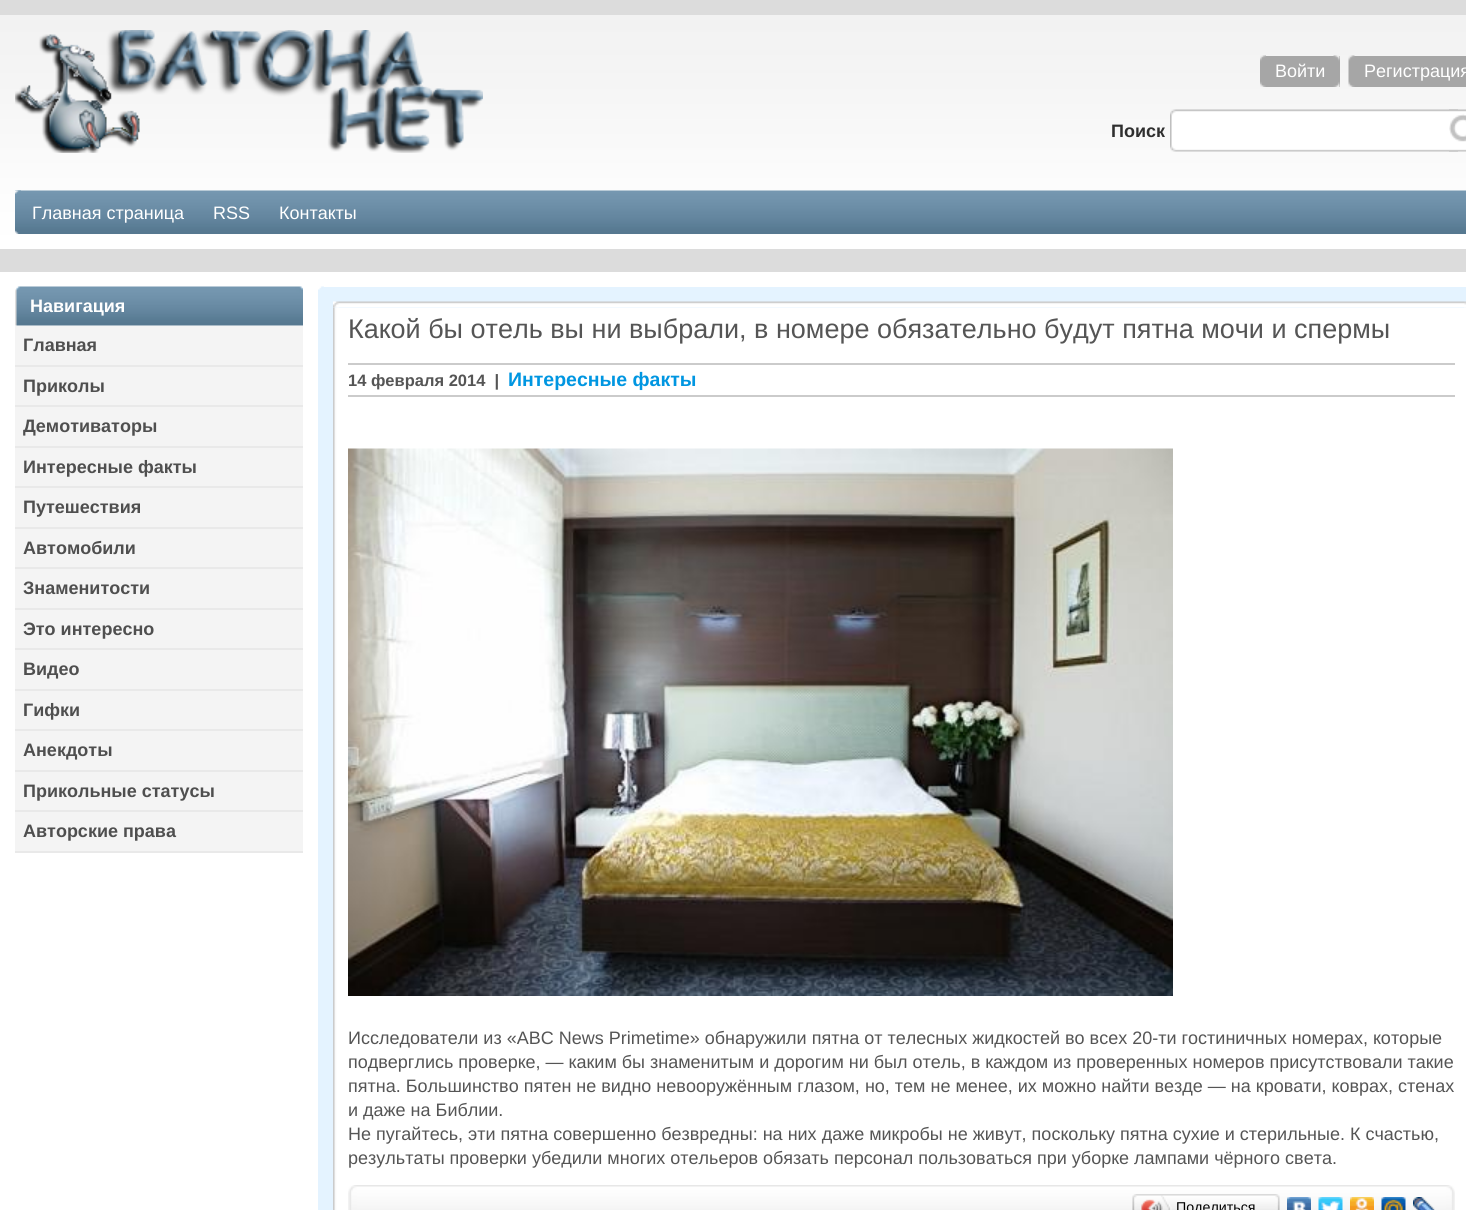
import math
import cairo

surface = cairo.ImageSurface(cairo.FORMAT_RGB24, 1466, 1210)
ctx = cairo.Context(surface)
options = cairo.FontOptions()
options.set_hint_metrics(cairo.HINT_METRICS_OFF)
options.set_hint_style(cairo.HINT_STYLE_NONE)
ctx.set_font_options(options)
ctx.set_miter_limit(4)


def picture(path, x, y, w, h):
    ctx.save()
    ctx.set_source_surface(cairo.ImageSurface.create_from_png(path), x, y)
    ctx.rectangle(x, y, w, h)
    ctx.fill()
    ctx.restore()


ctx.set_source_rgb(0.863, 0.863, 0.863)
ctx.paint()
picture("img1.png", 0, 15, 1466, 234)
picture("img2.png", 15, 30, 468, 123)
ctx.set_source_rgb(0.651, 0.651, 0.651)
ctx.rectangle(1266, 56, 74, 31)
ctx.fill()
picture("img3.png", 1260, 55, 6, 32)
picture("img4.png", 1333, 55, 7, 32)
ctx.select_font_face("Liberation Sans")
ctx.set_font_size(18)
ctx.set_source_rgb(1, 1, 1)
ctx.move_to(1275, 77)
ctx.show_text("Войти")
ctx.set_source_rgb(0.651, 0.651, 0.651)
ctx.rectangle(1354, 56, 112, 31)
ctx.fill()
picture("img5.png", 1348, 55, 7, 32)
ctx.set_source_rgb(1, 1, 1)
ctx.move_to(1364, 77)
ctx.show_text("Регистрация")
picture("img6.png", 1170, 109, 6, 43)
picture("img7.png", 1176, 109, 282, 43)
ctx.select_font_face("Liberation Sans", cairo.FONT_SLANT_NORMAL, cairo.FONT_WEIGHT_BOLD)
ctx.set_source_rgb(0.184, 0.184, 0.184)
ctx.move_to(1111, 137)
ctx.show_text("Поиск")
picture("img8.png", 1449, 109, 17, 43)
picture("img9.png", 15, 190, 1451, 44)
picture("img10.png", 15, 190, 6, 44)
ctx.select_font_face("Liberation Sans")
ctx.set_source_rgb(1, 1, 1)
ctx.move_to(32, 219)
ctx.show_text("Главная страница")
ctx.move_to(213, 219)
ctx.show_text("RSS")
ctx.move_to(279, 219)
ctx.show_text("Контакты")
ctx.rectangle(0, 272, 1466, 938)
ctx.fill()
picture("img11.png", 15, 286, 288, 40)
ctx.select_font_face("Liberation Sans", cairo.FONT_SLANT_NORMAL, cairo.FONT_WEIGHT_BOLD)
ctx.move_to(30, 312)
ctx.show_text("Навигация")
ctx.set_source_rgb(0.957, 0.957, 0.957)
ctx.rectangle(15, 326, 288, 525)
ctx.fill()
ctx.set_source_rgb(0.914, 0.914, 0.914)
ctx.rectangle(15, 365, 288, 2)
ctx.fill()
ctx.set_source_rgb(0.31, 0.31, 0.31)
ctx.move_to(23, 351)
ctx.show_text("Главная")
ctx.set_source_rgb(0.914, 0.914, 0.914)
ctx.rectangle(15, 405, 288, 2)
ctx.fill()
ctx.set_source_rgb(0.31, 0.31, 0.31)
ctx.move_to(23, 392)
ctx.show_text("Приколы")
ctx.set_source_rgb(0.914, 0.914, 0.914)
ctx.rectangle(15, 446, 288, 2)
ctx.fill()
ctx.set_source_rgb(0.31, 0.31, 0.31)
ctx.move_to(23, 432)
ctx.show_text("Демотиваторы")
ctx.set_source_rgb(0.914, 0.914, 0.914)
ctx.rectangle(15, 486, 288, 2)
ctx.fill()
ctx.set_source_rgb(0.31, 0.31, 0.31)
ctx.move_to(23, 473)
ctx.show_text("Интересные факты")
ctx.set_source_rgb(0.914, 0.914, 0.914)
ctx.rectangle(15, 527, 288, 2)
ctx.fill()
ctx.set_source_rgb(0.31, 0.31, 0.31)
ctx.move_to(23, 513)
ctx.show_text("Путешествия")
ctx.set_source_rgb(0.914, 0.914, 0.914)
ctx.rectangle(15, 567, 288, 2)
ctx.fill()
ctx.set_source_rgb(0.31, 0.31, 0.31)
ctx.move_to(23, 554)
ctx.show_text("Автомобили")
ctx.set_source_rgb(0.914, 0.914, 0.914)
ctx.rectangle(15, 608, 288, 2)
ctx.fill()
ctx.set_source_rgb(0.31, 0.31, 0.31)
ctx.move_to(23, 594)
ctx.show_text("Знаменитости")
ctx.set_source_rgb(0.914, 0.914, 0.914)
ctx.rectangle(15, 648, 288, 2)
ctx.fill()
ctx.set_source_rgb(0.31, 0.31, 0.31)
ctx.move_to(23, 635)
ctx.show_text("Это интересно")
ctx.set_source_rgb(0.914, 0.914, 0.914)
ctx.rectangle(15, 689, 288, 2)
ctx.fill()
ctx.set_source_rgb(0.31, 0.31, 0.31)
ctx.move_to(23, 675)
ctx.show_text("Видео")
ctx.set_source_rgb(0.914, 0.914, 0.914)
ctx.rectangle(15, 729, 288, 2)
ctx.fill()
ctx.set_source_rgb(0.31, 0.31, 0.31)
ctx.move_to(23, 716)
ctx.show_text("Гифки")
ctx.set_source_rgb(0.914, 0.914, 0.914)
ctx.rectangle(15, 770, 288, 2)
ctx.fill()
ctx.set_source_rgb(0.31, 0.31, 0.31)
ctx.move_to(23, 756)
ctx.show_text("Анекдоты")
ctx.set_source_rgb(0.914, 0.914, 0.914)
ctx.rectangle(15, 810, 288, 2)
ctx.fill()
ctx.set_source_rgb(0.31, 0.31, 0.31)
ctx.move_to(23, 797)
ctx.show_text("Прикольные статусы")
ctx.set_source_rgb(0.914, 0.914, 0.914)
ctx.rectangle(15, 851, 288, 2)
ctx.fill()
ctx.set_source_rgb(0.31, 0.31, 0.31)
ctx.move_to(23, 837)
ctx.show_text("Авторские права")
ctx.set_source_rgb(0.894, 0.953, 1)
ctx.rectangle(318, 287, 1148, 923)
ctx.fill()
picture("img12.png", 318, 286, 6, 4)
picture("img16.png", 333, 307, 6, 903)
picture("img13.png", 333, 301, 6, 7)
picture("img14.png", 339, 301, 1125, 7)
picture("img31.png", 1464, 307, 2, 903)
picture("img15.png", 1464, 301, 2, 7)
ctx.set_source_rgb(1, 1, 1)
ctx.rectangle(339, 308, 1125, 902)
ctx.fill()
ctx.set_source_rgb(0.796, 0.796, 0.796)
ctx.rectangle(348, 363, 1107, 2)
ctx.fill()
ctx.select_font_face("Liberation Sans")
ctx.set_font_size(27)
ctx.set_source_rgb(0.333, 0.333, 0.333)
ctx.move_to(348, 338)
ctx.show_text("Какой бы отель вы ни выбрали, в номере обязательно будут пятна мочи и спермы")
ctx.set_source_rgb(0.796, 0.796, 0.796)
ctx.rectangle(348, 395, 1107, 2)
ctx.fill()
ctx.select_font_face("Liberation Sans", cairo.FONT_SLANT_NORMAL, cairo.FONT_WEIGHT_BOLD)
ctx.set_font_size(16.5)
ctx.set_source_rgb(0.333, 0.333, 0.333)
ctx.move_to(348, 386)
ctx.show_text("14 февраля 2014  |")
ctx.set_font_size(19.5)
ctx.set_source_rgb(0, 0.588, 0.882)
ctx.move_to(508, 386)
ctx.show_text("Интересные факты")
picture("img17.png", 348, 448, 825, 548)
ctx.select_font_face("Liberation Sans")
ctx.set_font_size(18)
ctx.set_source_rgb(0.333, 0.333, 0.333)
ctx.move_to(348, 1044)
ctx.show_text("Исследователи из «ABC News Primetime» обнаружили пятна от телесных жидкостей во всех 20-ти гостиничных номерах, которые")
ctx.move_to(348, 1068)
ctx.show_text("подверглись проверке, — каким бы знаменитым и дорогим ни был отель, в каждом из проверенных номеров присутствовали такие")
ctx.move_to(348, 1092)
ctx.show_text("пятна. Большинство пятен не видно невооружённым глазом, но, тем не менее, их можно найти везде — на кровати, коврах, стенах")
ctx.move_to(348, 1116)
ctx.show_text("и даже на Библии.")
ctx.move_to(348, 1140)
ctx.show_text("Не пугайтесь, эти пятна совершенно безвредны: на них даже микробы не живут, поскольку пятна сухие и стерильные. К счастью,")
ctx.move_to(348, 1164)
ctx.show_text("результаты проверки убедили многих отельеров обязать персонал пользоваться при уборке лампами чёрного света.")
picture("img18.png", 348, 1185, 9, 25)
picture("img19.png", 357, 1185, 348, 25)
picture("img20.png", 705, 1185, 741, 25)
picture("img21.png", 1137, 1194, 138, 16)
picture("img22.png", 1132, 1194, 5, 16)
picture("img23.png", 1141, 1195, 31, 15)
ctx.set_font_size(14.25)
ctx.set_source_rgb(0, 0, 0)
ctx.move_to(1176, 1212)
ctx.show_text("Поделиться")
picture("img24.png", 1275, 1194, 5, 16)
picture("img25.png", 1287, 1197, 24, 13)
picture("img26.png", 1318, 1197, 25, 13)
picture("img27.png", 1350, 1197, 24, 13)
picture("img28.png", 1381, 1197, 25, 13)
picture("img29.png", 1413, 1197, 22, 13)
picture("img30.png", 1446, 1185, 9, 25)
surface.write_to_png("page.png")
